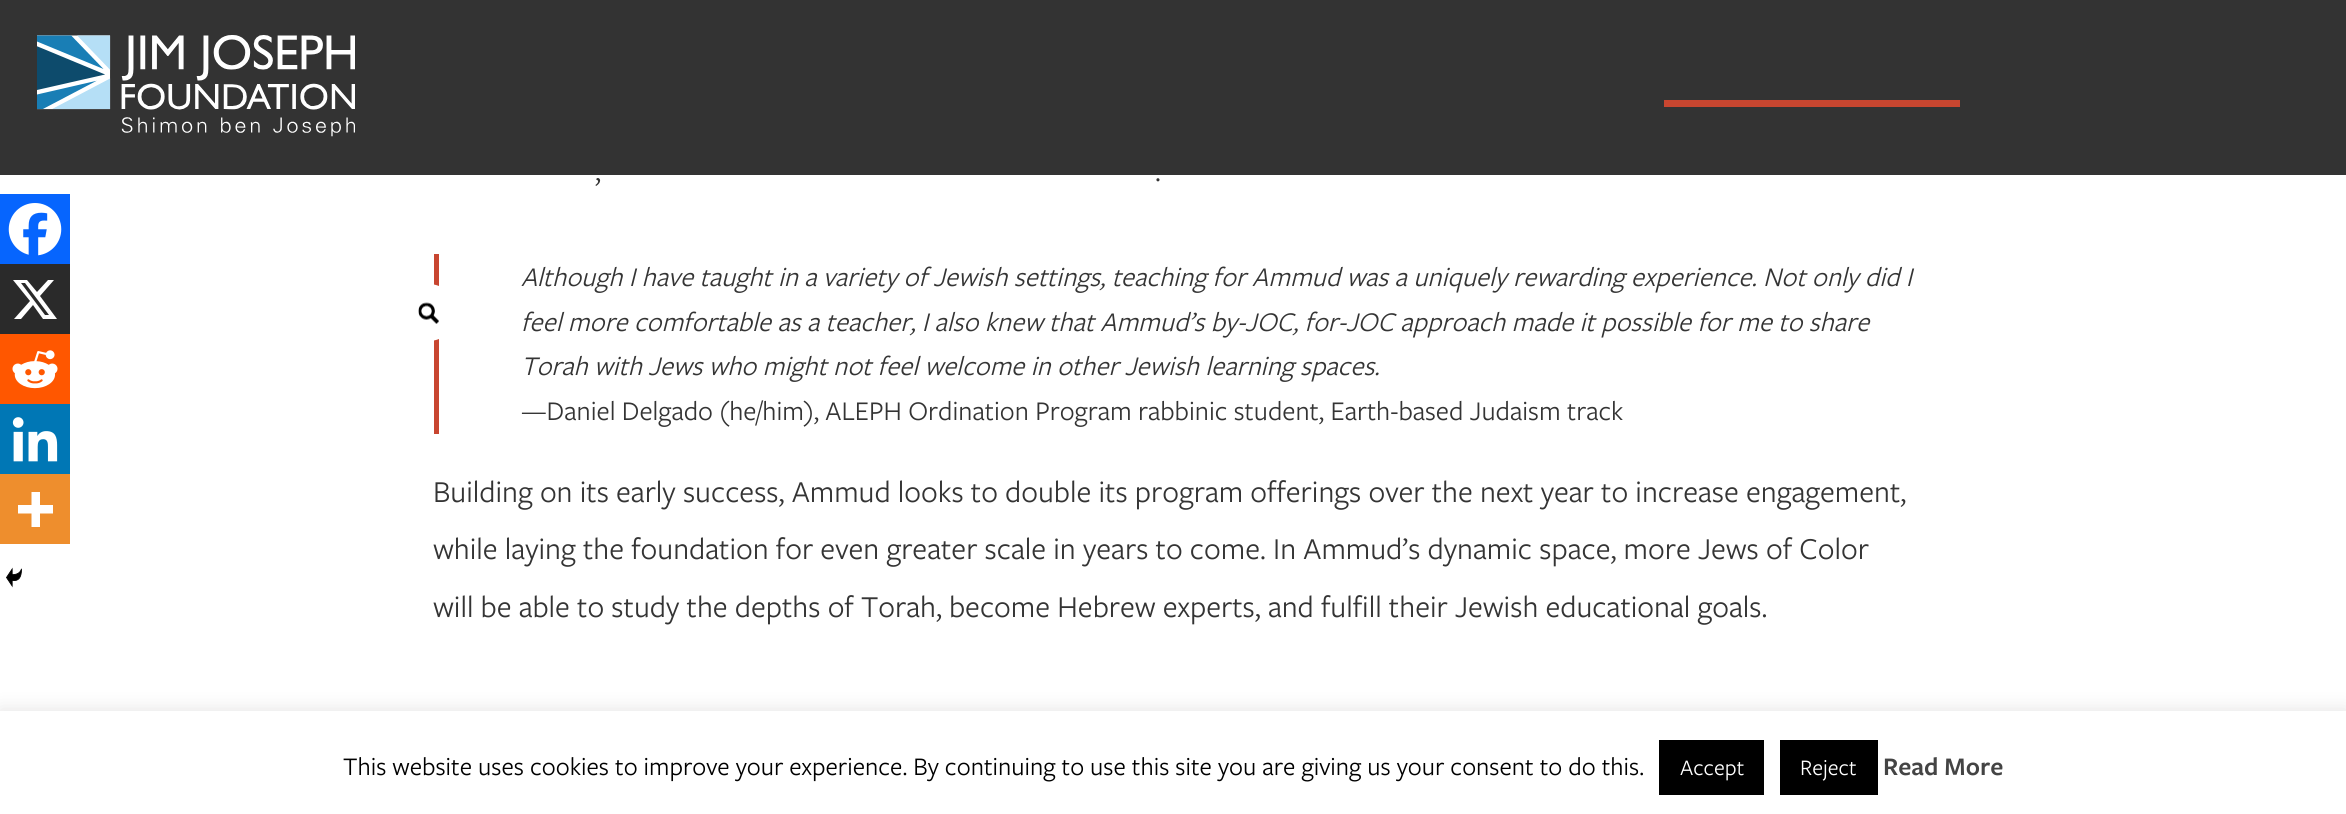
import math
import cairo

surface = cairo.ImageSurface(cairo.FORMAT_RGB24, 2346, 814)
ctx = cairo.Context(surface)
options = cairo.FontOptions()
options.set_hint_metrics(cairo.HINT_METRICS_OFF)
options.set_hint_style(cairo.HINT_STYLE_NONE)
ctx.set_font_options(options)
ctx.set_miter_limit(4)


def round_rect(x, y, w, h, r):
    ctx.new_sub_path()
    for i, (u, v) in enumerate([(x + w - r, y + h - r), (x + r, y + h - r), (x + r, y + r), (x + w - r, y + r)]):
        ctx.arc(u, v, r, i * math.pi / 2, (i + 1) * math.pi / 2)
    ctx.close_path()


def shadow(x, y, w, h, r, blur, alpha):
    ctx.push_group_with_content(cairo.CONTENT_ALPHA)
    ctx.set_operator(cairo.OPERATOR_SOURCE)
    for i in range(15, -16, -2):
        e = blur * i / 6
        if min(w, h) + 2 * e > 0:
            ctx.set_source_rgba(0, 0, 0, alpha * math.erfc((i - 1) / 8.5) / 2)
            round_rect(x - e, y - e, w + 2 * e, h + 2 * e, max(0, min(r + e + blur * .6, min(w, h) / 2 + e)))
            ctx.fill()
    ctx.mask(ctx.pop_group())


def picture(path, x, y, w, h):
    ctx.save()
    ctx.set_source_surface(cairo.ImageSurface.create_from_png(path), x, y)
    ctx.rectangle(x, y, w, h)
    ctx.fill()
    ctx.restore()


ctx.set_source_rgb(1, 1, 1)
ctx.paint()
ctx.set_source_rgb(0.2, 0.2, 0.2)
ctx.rectangle(0, 0, 2346, 175)
ctx.fill()
picture("img1.png", 37, 35, 318, 102)
ctx.set_source_rgb(0.784, 0.275, 0.188)
ctx.rectangle(1664, 100, 296, 7)
ctx.fill()
ctx.rectangle(434, 254, 5, 180)
ctx.fill()
ctx.set_source_rgb(1, 1, 1)
round_rect(399, 284, 58, 57, 28.5)
ctx.fill()
picture("img2.png", 418, 302, 21, 22)
ctx.select_font_face("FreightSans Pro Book")
ctx.set_font_size(31.5)
ctx.set_source_rgb(0.204, 0.204, 0.204)
ctx.move_to(595, 181)
ctx.show_text(",")
ctx.move_to(1155, 181)
ctx.show_text(".")
ctx.set_source_rgb(0.027, 0.396, 0.996)
ctx.rectangle(0, 194, 70, 70)
ctx.fill()
picture("img3.png", 8, 203, 54, 53)
ctx.set_source_rgb(0.165, 0.165, 0.165)
ctx.rectangle(0, 264, 70, 70)
ctx.fill()
ctx.set_source_rgb(1, 1, 1)
ctx.new_path()
ctx.move_to(48, 280)
ctx.line_to(54, 280)
ctx.line_to(40, 296)
ctx.line_to(57, 319)
ctx.line_to(43, 319)
ctx.line_to(33, 305)
ctx.line_to(21, 319)
ctx.line_to(14, 319)
ctx.line_to(30, 301)
ctx.line_to(13, 280)
ctx.line_to(27, 280)
ctx.line_to(37, 292)
ctx.close_path()
ctx.move_to(45, 315)
ctx.line_to(49, 315)
ctx.line_to(25, 283)
ctx.line_to(21, 283)
ctx.close_path()
ctx.fill()
ctx.set_source_rgb(1, 0.341, 0)
ctx.rectangle(0, 334, 70, 70)
ctx.fill()
picture("img4.png", 12, 350, 46, 39)
ctx.set_source_rgb(0, 0.467, 0.71)
ctx.rectangle(0, 404, 70, 70)
ctx.fill()
picture("img5.png", 12, 417, 46, 45)
ctx.set_source_rgb(0.933, 0.557, 0.176)
ctx.rectangle(0, 474, 70, 70)
ctx.fill()
ctx.set_source_rgb(1, 1, 1)
ctx.set_fill_rule(cairo.FILL_RULE_EVEN_ODD)
ctx.new_path()
ctx.move_to(40, 505)
ctx.line_to(40, 492)
ctx.line_to(31.5, 492)
ctx.line_to(31.5, 505)
ctx.line_to(18, 505)
ctx.line_to(18, 513.5)
ctx.line_to(31.5, 513.5)
ctx.line_to(31.5, 527)
ctx.line_to(40, 527)
ctx.line_to(40, 513.5)
ctx.line_to(53, 513.5)
ctx.line_to(53, 505)
ctx.close_path()
ctx.fill()
picture("img6.png", 6, 567, 16, 21)
ctx.select_font_face("FreightSans Pro Book", cairo.FONT_SLANT_ITALIC)
ctx.set_font_size(28)
ctx.set_source_rgb(0.204, 0.204, 0.204)
ctx.move_to(521, 286)
ctx.show_text("Although I have taught in a variety of Jewish settings, teaching for Ammud was a uniquely rewarding experience. Not only did I")
ctx.move_to(521, 331)
ctx.show_text("feel more comfortable as a teacher, I also knew that Ammud’s by-JOC, for-JOC approach made it possible for me to share")
ctx.move_to(521, 375)
ctx.show_text("Torah with Jews who might not feel welcome in other Jewish learning spaces.")
ctx.select_font_face("FreightSans Pro Book")
ctx.move_to(521, 420)
ctx.show_text("—Daniel Delgado (he/him), ALEPH Ordination Program rabbinic student, Earth-based Judaism track")
ctx.set_font_size(31.5)
ctx.move_to(433, 502)
ctx.show_text("Building on its early success, Ammud looks to double its program offerings over the next year to increase engagement,")
ctx.move_to(433, 559)
ctx.show_text("while laying the foundation for even greater scale in years to come. In Ammud’s dynamic space, more Jews of Color")
ctx.move_to(433, 617)
ctx.show_text("will be able to study the depths of Torah, become Hebrew experts, and fulfill their Jewish educational goals.")
ctx.set_source_rgb(0.675, 0.671, 0.671)
shadow(0, 709, 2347, 105, 0, 9, 0.3)
ctx.set_source_rgb(1, 1, 1)
ctx.rectangle(0, 711, 2346, 103)
ctx.fill()
ctx.set_font_size(26.25)
ctx.set_source_rgb(0, 0, 0)
ctx.move_to(343, 775)
ctx.show_text("This website uses cookies to improve your experience. By continuing to use this site you are giving us your consent to do this.")
ctx.rectangle(1659, 740, 105, 55)
ctx.fill()
ctx.set_font_size(23)
ctx.set_source_rgb(1, 1, 1)
ctx.move_to(1680, 775)
ctx.show_text("Accept")
ctx.set_source_rgb(0, 0, 0)
ctx.rectangle(1780, 740, 98, 55)
ctx.fill()
ctx.set_source_rgb(1, 1, 1)
ctx.move_to(1800, 775)
ctx.show_text("Reject")
ctx.select_font_face("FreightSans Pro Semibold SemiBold")
ctx.set_font_size(26.25)
ctx.set_source_rgb(0.267, 0.267, 0.267)
ctx.move_to(1883, 775)
ctx.show_text("Read More")
surface.write_to_png("page.png")
